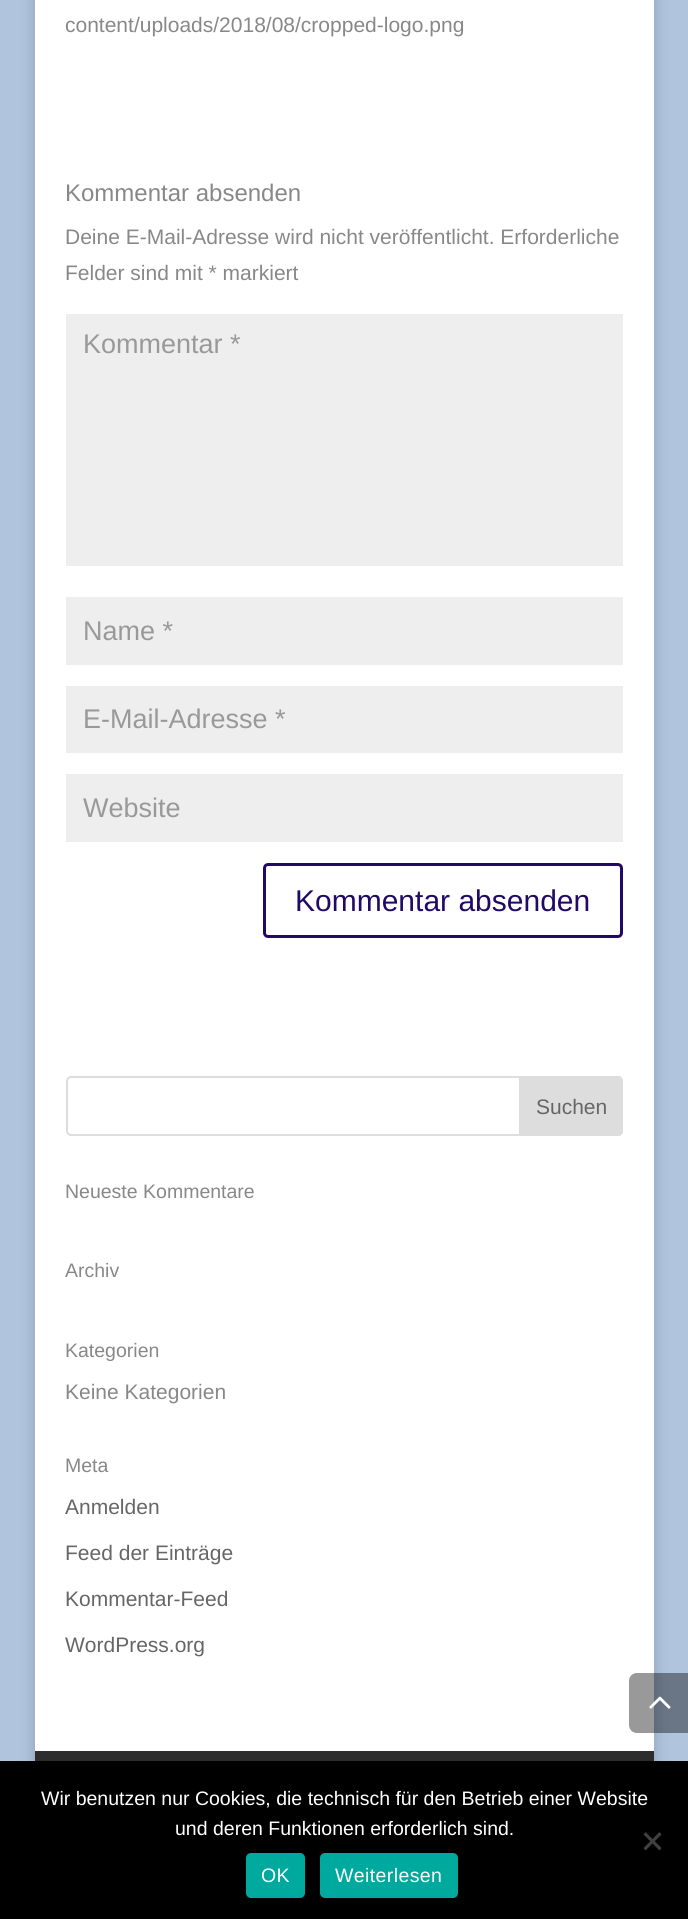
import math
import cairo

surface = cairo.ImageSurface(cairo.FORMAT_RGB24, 688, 1919)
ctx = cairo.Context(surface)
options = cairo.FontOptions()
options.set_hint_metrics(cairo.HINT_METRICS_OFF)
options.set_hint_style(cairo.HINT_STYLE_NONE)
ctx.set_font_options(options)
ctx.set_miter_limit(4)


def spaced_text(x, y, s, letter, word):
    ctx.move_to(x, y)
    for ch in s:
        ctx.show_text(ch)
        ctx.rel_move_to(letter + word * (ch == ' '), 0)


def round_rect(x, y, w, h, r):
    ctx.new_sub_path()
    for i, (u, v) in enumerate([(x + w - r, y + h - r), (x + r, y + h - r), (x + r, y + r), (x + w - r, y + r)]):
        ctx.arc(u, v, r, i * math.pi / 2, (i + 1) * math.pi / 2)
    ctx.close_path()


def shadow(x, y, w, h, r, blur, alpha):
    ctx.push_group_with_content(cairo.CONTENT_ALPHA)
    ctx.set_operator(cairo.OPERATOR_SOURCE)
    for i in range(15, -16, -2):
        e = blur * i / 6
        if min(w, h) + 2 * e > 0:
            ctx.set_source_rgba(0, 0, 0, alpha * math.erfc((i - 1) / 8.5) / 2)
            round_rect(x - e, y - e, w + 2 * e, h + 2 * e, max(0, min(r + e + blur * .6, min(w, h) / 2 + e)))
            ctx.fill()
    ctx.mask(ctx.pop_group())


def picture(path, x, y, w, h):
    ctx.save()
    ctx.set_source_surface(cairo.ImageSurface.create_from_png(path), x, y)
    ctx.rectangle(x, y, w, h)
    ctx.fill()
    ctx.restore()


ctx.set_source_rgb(0.69, 0.769, 0.871)
ctx.paint()
ctx.set_source_rgb(0, 0, 0)
shadow(35, -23, 619, 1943, 0, 7.5, 0.2)
ctx.set_source_rgb(1, 1, 1)
ctx.rectangle(35, 0, 619, 1751)
ctx.fill()
ctx.select_font_face("Liberation Sans")
ctx.set_font_size(21)
ctx.set_source_rgb(0.533, 0.533, 0.533)
ctx.move_to(65, 32)
ctx.show_text("content/uploads/2018/08/cropped-logo.png")
ctx.set_font_size(24)
ctx.move_to(65, 201)
ctx.show_text("Kommentar absenden")
ctx.set_font_size(21)
ctx.move_to(65, 244)
ctx.show_text("Deine E-Mail-Adresse wird nicht veröffentlicht. Erforderliche")
ctx.move_to(65, 280)
ctx.show_text("Felder sind mit * markiert")
ctx.set_source_rgb(0.933, 0.933, 0.933)
ctx.rectangle(66, 314, 557, 252)
ctx.fill()
ctx.set_font_size(27)
ctx.set_source_rgb(0.6, 0.6, 0.6)
ctx.move_to(83, 353)
ctx.show_text("Kommentar *")
ctx.set_source_rgb(0.933, 0.933, 0.933)
ctx.rectangle(66, 597, 557, 68)
ctx.fill()
ctx.set_source_rgb(0.6, 0.6, 0.6)
ctx.move_to(83, 640)
ctx.show_text("Name *")
ctx.set_source_rgb(0.933, 0.933, 0.933)
ctx.rectangle(66, 686, 557, 67)
ctx.fill()
ctx.set_source_rgb(0.6, 0.6, 0.6)
ctx.move_to(83, 728)
ctx.show_text("E-Mail-Adresse *")
ctx.set_source_rgb(0.933, 0.933, 0.933)
ctx.rectangle(66, 774, 557, 68)
ctx.fill()
ctx.set_source_rgb(0.6, 0.6, 0.6)
ctx.move_to(83, 817)
ctx.show_text("Website")
round_rect(264.5, 864.5, 357, 72, 3.5)
ctx.set_source_rgb(0.129, 0.039, 0.4)
ctx.set_line_width(3)
ctx.stroke()
ctx.set_font_size(30)
ctx.move_to(295, 911)
ctx.show_text("Kommentar absenden")
round_rect(67, 1077, 555, 58, 4)
ctx.set_source_rgb(0.867, 0.867, 0.867)
ctx.set_line_width(2)
ctx.stroke()
ctx.new_path()
ctx.move_to(520, 1077)
ctx.line_to(618, 1077)
ctx.curve_to(620, 1077, 622, 1079, 622, 1081)
ctx.line_to(622, 1131)
ctx.curve_to(622, 1133, 620, 1135, 618, 1135)
ctx.line_to(520, 1135)
ctx.close_path()
ctx.fill_preserve()
ctx.stroke()
ctx.set_font_size(21)
ctx.set_source_rgb(0.4, 0.4, 0.4)
ctx.move_to(536, 1114)
ctx.show_text("Suchen")
ctx.set_font_size(19.5)
ctx.set_source_rgb(0.533, 0.533, 0.533)
ctx.move_to(65, 1198)
ctx.show_text("Neueste Kommentare")
ctx.move_to(65, 1277)
ctx.show_text("Archiv")
ctx.move_to(65, 1357)
ctx.show_text("Kategorien")
ctx.set_font_size(21)
ctx.move_to(65, 1399)
ctx.show_text("Keine Kategorien")
ctx.set_font_size(19.5)
ctx.move_to(65, 1472)
ctx.show_text("Meta")
ctx.set_font_size(21)
ctx.set_source_rgb(0.4, 0.4, 0.4)
ctx.move_to(65, 1514)
ctx.show_text("Anmelden")
ctx.move_to(65, 1560)
ctx.show_text("Feed der Einträge")
ctx.move_to(65, 1606)
ctx.show_text("Kommentar-Feed")
ctx.move_to(65, 1652)
ctx.show_text("WordPress.org")
ctx.set_source_rgba(0, 0, 0, 0.4)
ctx.new_path()
ctx.move_to(637, 1673)
ctx.line_to(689, 1673)
ctx.line_to(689, 1733)
ctx.line_to(637, 1733)
ctx.curve_to(632.5, 1733, 629, 1729.5, 629, 1725)
ctx.line_to(629, 1681)
ctx.curve_to(629, 1676.5, 632.5, 1673, 637, 1673)
ctx.close_path()
ctx.fill()
picture("img1.png", 649, 1696, 22, 13)
ctx.set_source_rgb(0.176, 0.176, 0.176)
ctx.rectangle(35, 1751, 619, 10)
ctx.fill()
ctx.set_source_rgb(0, 0, 0)
ctx.rectangle(0, 1761, 688, 158)
ctx.fill()
ctx.set_font_size(19.5)
ctx.set_source_rgb(1, 1, 1)
ctx.move_to(41, 1805)
ctx.show_text("Wir benutzen nur Cookies, die technisch für den Betrieb einer Website")
ctx.move_to(175, 1835)
ctx.show_text("und deren Funktionen erforderlich sind.")
ctx.set_source_rgb(0.251, 0.251, 0.251)
ctx.new_path()
ctx.move_to(659.5, 1832)
ctx.line_to(661.5, 1834.5)
ctx.line_to(645.5, 1850.5)
ctx.line_to(643.5, 1848)
ctx.close_path()
ctx.fill()
ctx.new_path()
ctx.move_to(643.5, 1834.5)
ctx.line_to(645.5, 1832)
ctx.line_to(661.5, 1848)
ctx.line_to(659.5, 1850.5)
ctx.close_path()
ctx.fill()
ctx.set_source_rgb(0, 0.663, 0.616)
round_rect(246, 1853, 59, 45, 5)
ctx.fill()
ctx.set_source_rgb(1, 1, 1)
spaced_text(261, 1882, "OK", 0.4, 0)
ctx.set_source_rgb(0, 0.663, 0.616)
round_rect(320, 1853, 138, 45, 5)
ctx.fill()
ctx.set_source_rgb(1, 1, 1)
spaced_text(335, 1882, "Weiterlesen", 0.4, 0)
surface.write_to_png("page.png")
